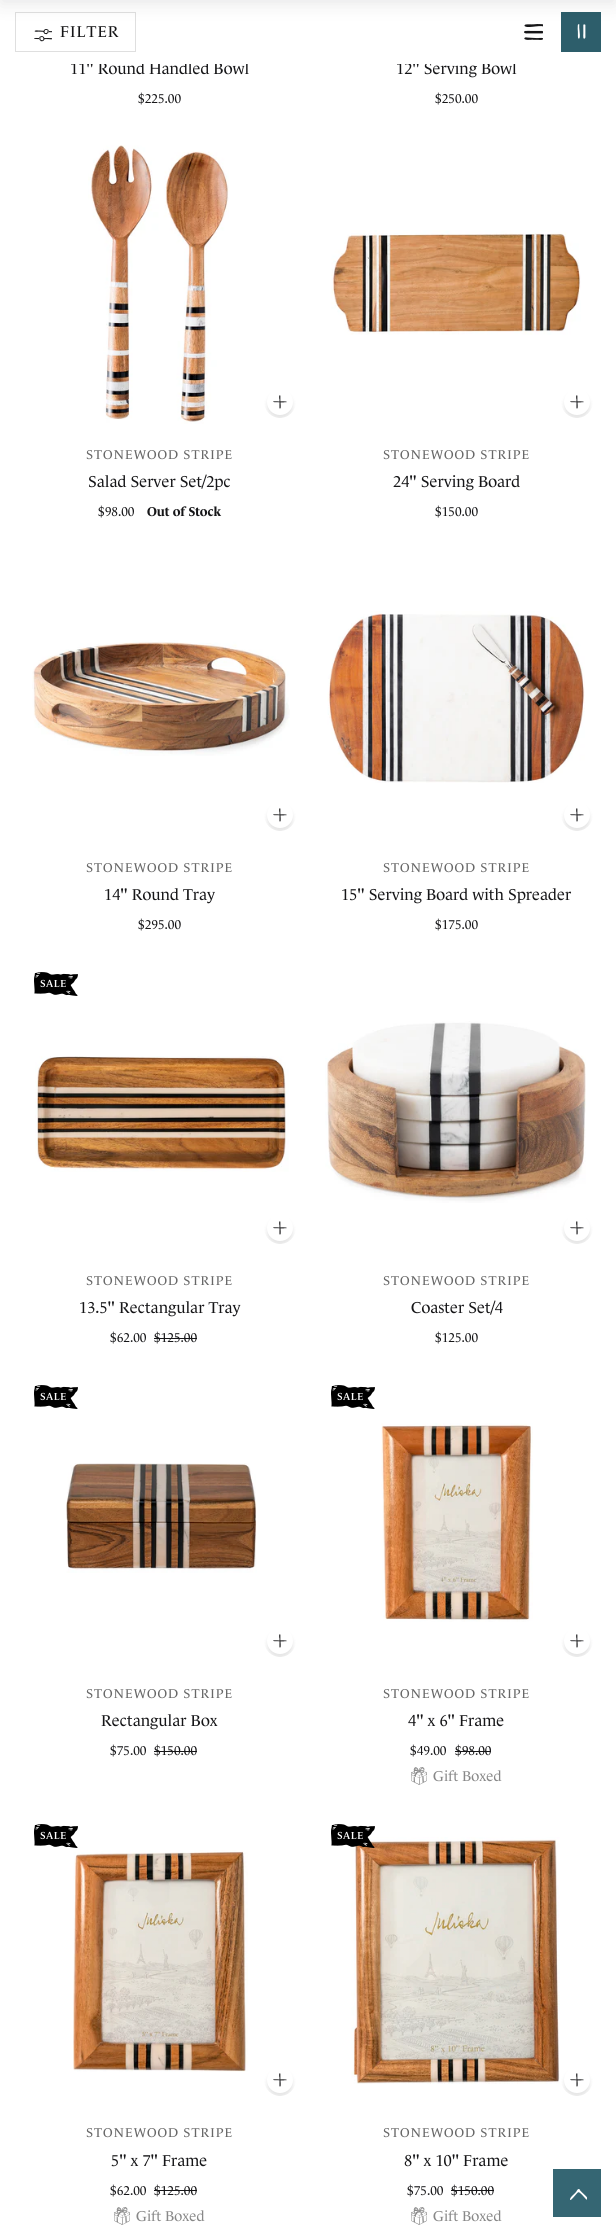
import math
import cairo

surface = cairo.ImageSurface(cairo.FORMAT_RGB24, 616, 2232)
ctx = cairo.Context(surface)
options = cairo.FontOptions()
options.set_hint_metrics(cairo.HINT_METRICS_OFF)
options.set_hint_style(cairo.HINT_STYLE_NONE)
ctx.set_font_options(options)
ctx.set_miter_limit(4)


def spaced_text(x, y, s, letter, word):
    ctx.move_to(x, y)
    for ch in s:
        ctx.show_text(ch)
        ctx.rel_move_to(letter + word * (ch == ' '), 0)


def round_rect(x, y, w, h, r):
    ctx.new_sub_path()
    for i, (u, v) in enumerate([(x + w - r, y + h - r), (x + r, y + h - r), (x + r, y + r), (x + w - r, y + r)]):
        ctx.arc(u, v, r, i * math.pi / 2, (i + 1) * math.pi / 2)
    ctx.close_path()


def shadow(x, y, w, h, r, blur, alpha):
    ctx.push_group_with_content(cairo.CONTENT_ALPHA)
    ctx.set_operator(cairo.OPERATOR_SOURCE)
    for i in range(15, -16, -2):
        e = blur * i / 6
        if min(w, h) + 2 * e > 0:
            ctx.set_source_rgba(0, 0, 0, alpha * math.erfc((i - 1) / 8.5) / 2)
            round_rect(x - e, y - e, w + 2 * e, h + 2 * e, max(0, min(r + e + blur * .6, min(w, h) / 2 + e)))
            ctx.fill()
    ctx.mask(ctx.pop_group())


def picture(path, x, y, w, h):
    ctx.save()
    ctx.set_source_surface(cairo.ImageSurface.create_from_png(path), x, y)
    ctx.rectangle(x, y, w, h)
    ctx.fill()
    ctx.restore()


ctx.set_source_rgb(1, 1, 1)
ctx.paint()
ctx.rectangle(15.5, 12.5, 120, 39)
ctx.set_source_rgb(0.875, 0.875, 0.875)
ctx.set_line_width(1)
ctx.stroke()
picture("img1.png", 34, 29, 18, 13)
picture("img2.png", 524, 24, 19, 16)
ctx.set_source_rgb(0.176, 0.369, 0.42)
ctx.rectangle(561, 12, 40, 40)
ctx.fill()
picture("img3.png", 577, 24, 9, 15)
ctx.set_source_rgb(0.086, 0.086, 0.094)
shadow(0, -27, 616, 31, 0, 9, 0.1)
ctx.select_font_face("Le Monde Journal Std")
ctx.set_font_size(16)
ctx.set_source_rgb(0.086, 0.086, 0.094)
ctx.move_to(70, 74)
ctx.show_text("11\" Round Handled Bowl")
ctx.move_to(396, 74)
ctx.show_text("12\" Serving Bowl")
ctx.set_source_rgb(1, 1, 1)
ctx.rectangle(72, 62, 444, 2)
ctx.fill()
ctx.set_source_rgb(0.086, 0.086, 0.094)
spaced_text(60, 37, "FILTER", 1, 0)
ctx.set_font_size(13)
ctx.move_to(138, 103)
ctx.show_text("$225.00")
ctx.move_to(435, 103)
ctx.show_text("$250.00")
picture("img4.png", 88, 145, 141, 279)
ctx.save()
round_rect(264, 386, 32, 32, 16)
ctx.clip()
ctx.set_source_rgb(0, 0, 0)
shadow(267, 393, 26, 26, 13, 2, 0.1)
ctx.restore()
ctx.set_source_rgb(1, 1, 1)
ctx.arc(280, 402, 13, 0, 2 * math.pi)
ctx.fill()
picture("img5.png", 273, 395, 14, 14)
ctx.set_source_rgb(0.404, 0.404, 0.404)
spaced_text(86, 459, "STONEWOOD STRIPE", 1, 0)
ctx.set_font_size(16)
ctx.set_source_rgb(0.086, 0.086, 0.094)
ctx.move_to(88, 487)
ctx.show_text("Salad Server Set/2pc")
ctx.set_font_size(13)
ctx.move_to(98, 516)
ctx.show_text("$98.00")
ctx.select_font_face("Le Monde Journal Std", cairo.FONT_SLANT_NORMAL, cairo.FONT_WEIGHT_BOLD)
ctx.move_to(147, 516)
ctx.show_text("Out of Stock")
picture("img6.png", 331, 230, 250, 105)
ctx.save()
round_rect(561, 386, 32, 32, 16)
ctx.clip()
ctx.set_source_rgb(0, 0, 0)
shadow(564, 393, 26, 26, 13, 2, 0.1)
ctx.restore()
ctx.set_source_rgb(1, 1, 1)
ctx.arc(577, 402, 13, 0, 2 * math.pi)
ctx.fill()
picture("img5.png", 570, 395, 14, 14)
ctx.select_font_face("Le Monde Journal Std")
ctx.set_source_rgb(0.404, 0.404, 0.404)
spaced_text(383, 459, "STONEWOOD STRIPE", 1, 0)
ctx.set_font_size(16)
ctx.set_source_rgb(0.086, 0.086, 0.094)
ctx.move_to(393, 487)
ctx.show_text("24\" Serving Board")
ctx.set_font_size(13)
ctx.move_to(435, 516)
ctx.show_text("$150.00")
picture("img7.png", 32, 640, 258, 116)
ctx.save()
round_rect(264, 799, 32, 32, 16)
ctx.clip()
ctx.set_source_rgb(0, 0, 0)
shadow(267, 806, 26, 26, 13, 2, 0.1)
ctx.restore()
ctx.set_source_rgb(1, 1, 1)
ctx.arc(280, 815, 13, 0, 2 * math.pi)
ctx.fill()
picture("img5.png", 273, 808, 14, 14)
ctx.set_source_rgb(0.404, 0.404, 0.404)
spaced_text(86, 872, "STONEWOOD STRIPE", 1, 0)
ctx.set_font_size(16)
ctx.set_source_rgb(0.086, 0.086, 0.094)
ctx.move_to(104, 900)
ctx.show_text("14\" Round Tray")
ctx.set_font_size(13)
ctx.move_to(138, 929)
ctx.show_text("$295.00")
picture("img8.png", 327, 611, 258, 172)
ctx.save()
round_rect(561, 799, 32, 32, 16)
ctx.clip()
ctx.set_source_rgb(0, 0, 0)
shadow(564, 806, 26, 26, 13, 2, 0.1)
ctx.restore()
ctx.set_source_rgb(1, 1, 1)
ctx.arc(577, 815, 13, 0, 2 * math.pi)
ctx.fill()
picture("img5.png", 570, 808, 14, 14)
ctx.set_source_rgb(0.404, 0.404, 0.404)
spaced_text(383, 872, "STONEWOOD STRIPE", 1, 0)
ctx.set_font_size(16)
ctx.set_source_rgb(0.086, 0.086, 0.094)
ctx.move_to(341, 900)
ctx.show_text("15\" Serving Board with Spreader")
ctx.set_font_size(13)
ctx.move_to(435, 929)
ctx.show_text("$175.00")
picture("img9.png", 34, 972, 44, 24)
picture("img10.png", 35, 1056, 254, 116)
ctx.save()
round_rect(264, 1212, 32, 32, 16)
ctx.clip()
ctx.set_source_rgb(0, 0, 0)
shadow(267, 1219, 26, 26, 13, 2, 0.1)
ctx.restore()
ctx.set_source_rgb(1, 1, 1)
ctx.arc(280, 1228, 13, 0, 2 * math.pi)
ctx.fill()
picture("img5.png", 273, 1221, 14, 14)
ctx.set_source_rgb(0.404, 0.404, 0.404)
spaced_text(86, 1285, "STONEWOOD STRIPE", 1, 0)
ctx.set_font_size(16)
ctx.set_source_rgb(0.086, 0.086, 0.094)
ctx.move_to(79, 1313)
ctx.show_text("13.5\" Rectangular Tray")
ctx.set_font_size(13)
ctx.move_to(110, 1342)
ctx.show_text("$62.00")
ctx.move_to(154, 1342)
ctx.show_text("$125.00")
ctx.rectangle(154, 1338, 43, 1)
ctx.fill()
picture("img11.png", 325, 1021, 261, 182)
ctx.save()
round_rect(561, 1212, 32, 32, 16)
ctx.clip()
ctx.set_source_rgb(0, 0, 0)
shadow(564, 1219, 26, 26, 13, 2, 0.1)
ctx.restore()
ctx.set_source_rgb(1, 1, 1)
ctx.arc(577, 1228, 13, 0, 2 * math.pi)
ctx.fill()
picture("img5.png", 570, 1221, 14, 14)
ctx.set_source_rgb(0.404, 0.404, 0.404)
spaced_text(383, 1285, "STONEWOOD STRIPE", 1, 0)
ctx.set_font_size(16)
ctx.set_source_rgb(0.086, 0.086, 0.094)
ctx.move_to(411, 1313)
ctx.show_text("Coaster Set/4")
ctx.set_font_size(13)
ctx.move_to(435, 1342)
ctx.show_text("$125.00")
picture("img9.png", 34, 1385, 44, 24)
picture("img12.png", 66, 1463, 191, 110)
ctx.save()
round_rect(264, 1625, 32, 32, 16)
ctx.clip()
ctx.set_source_rgb(0, 0, 0)
shadow(267, 1632, 26, 26, 13, 2, 0.1)
ctx.restore()
ctx.set_source_rgb(1, 1, 1)
ctx.arc(280, 1641, 13, 0, 2 * math.pi)
ctx.fill()
picture("img5.png", 273, 1634, 14, 14)
ctx.set_source_rgb(0.404, 0.404, 0.404)
spaced_text(86, 1698, "STONEWOOD STRIPE", 1, 0)
ctx.set_font_size(16)
ctx.set_source_rgb(0.086, 0.086, 0.094)
ctx.move_to(101, 1726)
ctx.show_text("Rectangular Box")
ctx.set_font_size(13)
ctx.move_to(110, 1755)
ctx.show_text("$75.00")
ctx.move_to(154, 1755)
ctx.show_text("$150.00")
ctx.rectangle(154, 1751, 43, 1)
ctx.fill()
picture("img9.png", 331, 1385, 44, 24)
picture("img13.png", 381, 1423, 152, 199)
ctx.save()
round_rect(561, 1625, 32, 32, 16)
ctx.clip()
ctx.set_source_rgb(0, 0, 0)
shadow(564, 1632, 26, 26, 13, 2, 0.1)
ctx.restore()
ctx.set_source_rgb(1, 1, 1)
ctx.arc(577, 1641, 13, 0, 2 * math.pi)
ctx.fill()
picture("img5.png", 570, 1634, 14, 14)
ctx.set_source_rgb(0.404, 0.404, 0.404)
spaced_text(383, 1698, "STONEWOOD STRIPE", 1, 0)
ctx.set_font_size(16)
ctx.set_source_rgb(0.086, 0.086, 0.094)
ctx.move_to(408, 1726)
ctx.show_text("4\" x 6\" Frame")
ctx.set_font_size(13)
ctx.move_to(410, 1755)
ctx.show_text("$49.00")
ctx.move_to(455, 1755)
ctx.show_text("$98.00")
ctx.rectangle(455, 1751, 36, 1)
ctx.fill()
picture("img14.png", 411, 1767, 16, 18)
ctx.set_font_size(14.5)
ctx.set_source_rgb(0.533, 0.533, 0.533)
ctx.move_to(433, 1781)
ctx.show_text("Gift Boxed")
picture("img9.png", 34, 1824, 44, 24)
picture("img15.png", 73, 1850, 175, 222)
ctx.save()
round_rect(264, 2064, 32, 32, 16)
ctx.clip()
ctx.set_source_rgb(0, 0, 0)
shadow(267, 2071, 26, 26, 13, 2, 0.1)
ctx.restore()
ctx.set_source_rgb(1, 1, 1)
ctx.arc(280, 2080, 13, 0, 2 * math.pi)
ctx.fill()
picture("img5.png", 273, 2073, 14, 14)
ctx.set_font_size(13)
ctx.set_source_rgb(0.404, 0.404, 0.404)
spaced_text(86, 2137, "STONEWOOD STRIPE", 1, 0)
ctx.set_font_size(16)
ctx.set_source_rgb(0.086, 0.086, 0.094)
ctx.move_to(111, 2166)
ctx.show_text("5\" x 7\" Frame")
ctx.set_font_size(13)
ctx.move_to(110, 2195)
ctx.show_text("$62.00")
ctx.move_to(154, 2195)
ctx.show_text("$125.00")
ctx.rectangle(154, 2190, 43, 1)
ctx.fill()
picture("img14.png", 114, 2207, 16, 18)
ctx.set_font_size(14.5)
ctx.set_source_rgb(0.533, 0.533, 0.533)
ctx.move_to(136, 2221)
ctx.show_text("Gift Boxed")
picture("img17.png", 351, 1837, 209, 247)
picture("img16.png", 331, 1824, 44, 24)
ctx.save()
round_rect(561, 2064, 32, 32, 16)
ctx.clip()
ctx.set_source_rgb(0, 0, 0)
shadow(564, 2071, 26, 26, 13, 2, 0.1)
ctx.restore()
ctx.set_source_rgb(1, 1, 1)
ctx.arc(577, 2080, 13, 0, 2 * math.pi)
ctx.fill()
picture("img5.png", 570, 2073, 14, 14)
ctx.set_font_size(13)
ctx.set_source_rgb(0.404, 0.404, 0.404)
spaced_text(383, 2137, "STONEWOOD STRIPE", 1, 0)
ctx.set_font_size(16)
ctx.set_source_rgb(0.086, 0.086, 0.094)
ctx.move_to(404, 2166)
ctx.show_text("8\" x 10\" Frame")
ctx.set_font_size(13)
ctx.move_to(407, 2195)
ctx.show_text("$75.00")
ctx.move_to(451, 2195)
ctx.show_text("$150.00")
ctx.rectangle(451, 2190, 43, 1)
ctx.fill()
picture("img14.png", 411, 2207, 16, 18)
ctx.set_font_size(14.5)
ctx.set_source_rgb(0.533, 0.533, 0.533)
ctx.move_to(433, 2221)
ctx.show_text("Gift Boxed")
ctx.set_source_rgb(0.208, 0.4, 0.451)
ctx.rectangle(553, 2169, 48, 48)
ctx.fill()
picture("img18.png", 570, 2189, 17, 11)
surface.write_to_png("page.png")
